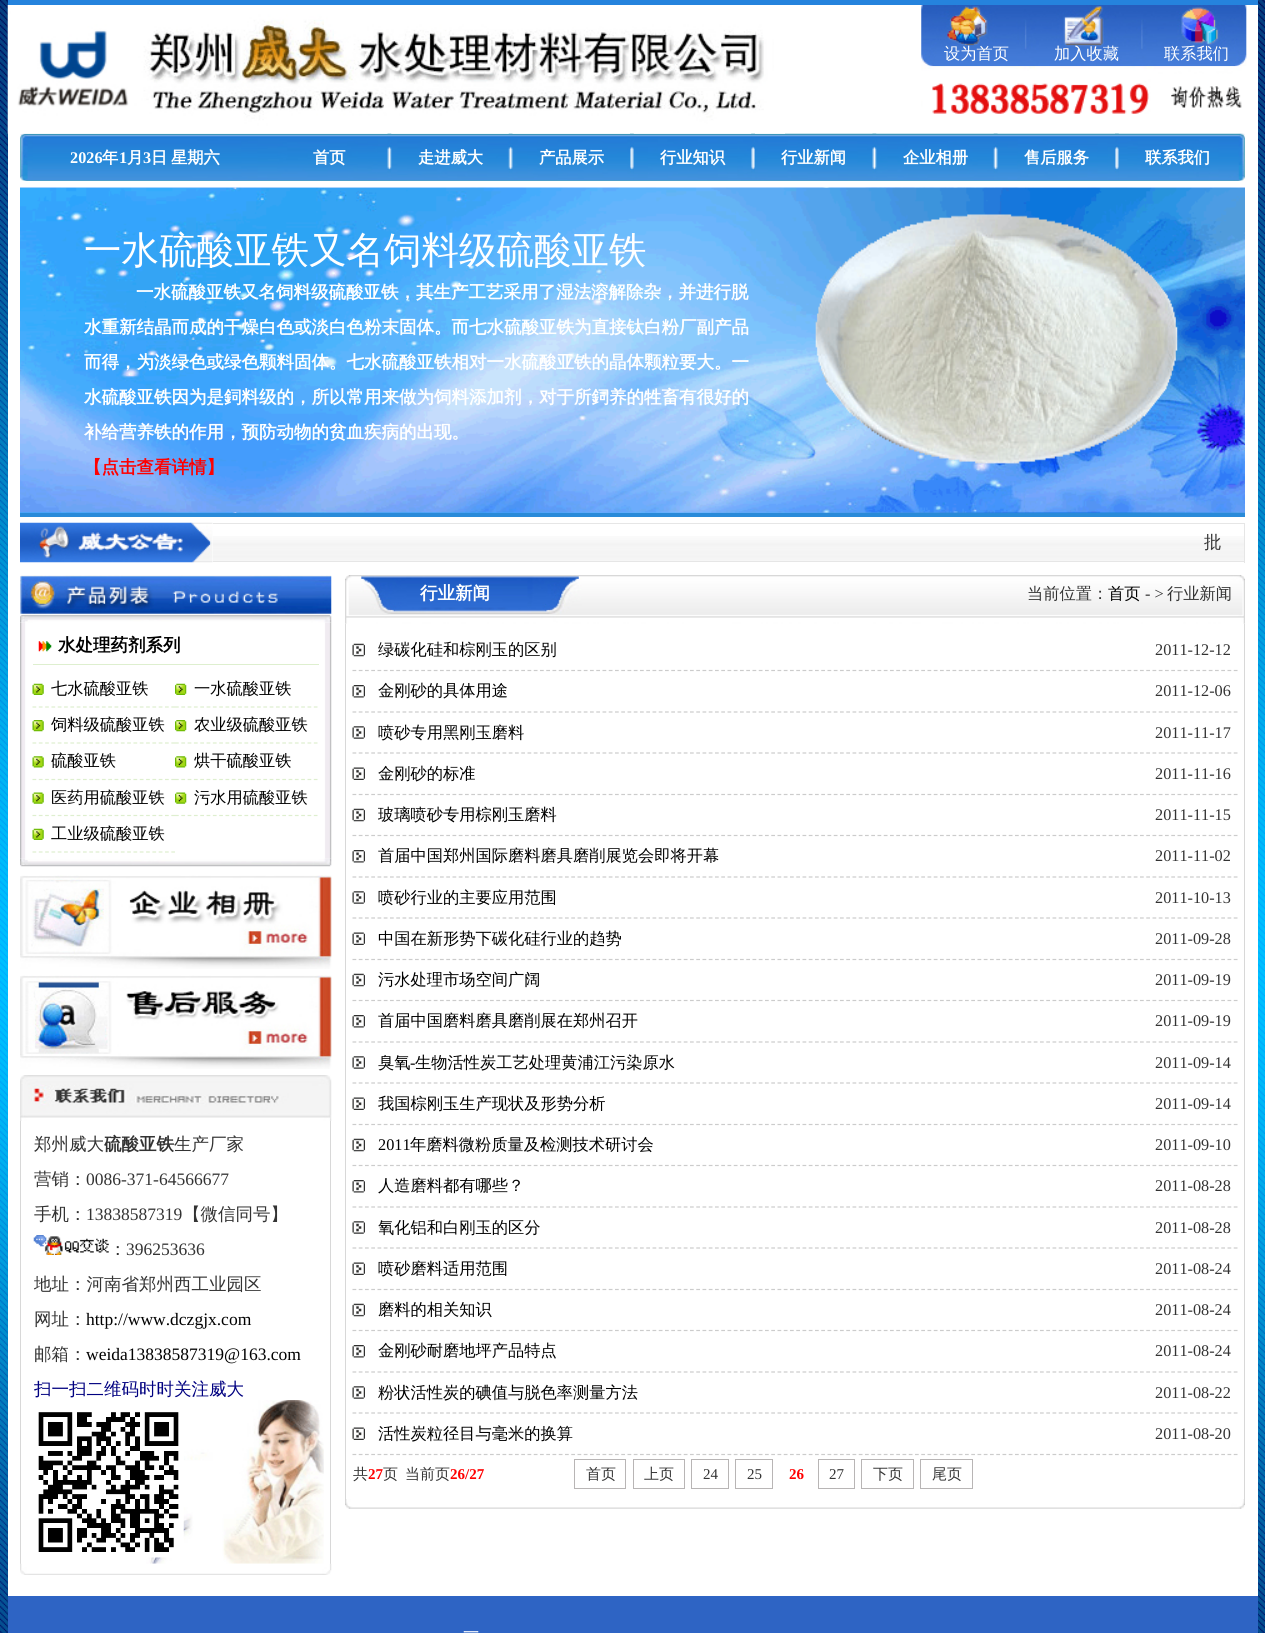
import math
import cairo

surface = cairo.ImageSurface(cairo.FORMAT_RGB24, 1265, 1633)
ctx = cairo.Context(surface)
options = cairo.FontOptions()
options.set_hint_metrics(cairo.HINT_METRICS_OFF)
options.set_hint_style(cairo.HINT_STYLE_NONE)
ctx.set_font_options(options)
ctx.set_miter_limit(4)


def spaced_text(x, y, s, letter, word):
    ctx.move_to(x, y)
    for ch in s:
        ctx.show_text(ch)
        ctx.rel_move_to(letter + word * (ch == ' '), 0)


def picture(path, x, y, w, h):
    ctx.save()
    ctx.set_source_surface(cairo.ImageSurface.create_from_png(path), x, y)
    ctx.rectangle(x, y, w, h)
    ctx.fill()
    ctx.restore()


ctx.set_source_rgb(1, 1, 1)
ctx.paint()
picture("img1.png", 0, 0, 1265, 1633)
ctx.set_source_rgb(1, 1, 1)
ctx.rectangle(8, 5, 1250, 1583)
ctx.fill()
ctx.set_source_rgb(0.145, 0.514, 0.867)
ctx.rectangle(8, 0, 1250, 5)
ctx.fill()
picture("img5.png", 20, 133, 1225, 48)
picture("img2.png", 7, 5, 778, 129)
picture("img3.png", 921, 5, 326, 62)
ctx.select_font_face("WenQuanYi Zen Hei Medium")
ctx.set_font_size(16.25)
ctx.set_source_rgb(1, 1, 1)
ctx.move_to(944, 59)
ctx.show_text("设为首页")
ctx.move_to(1054, 59)
ctx.show_text("加入收藏")
ctx.move_to(1164, 59)
ctx.show_text("联系我们")
picture("img4.png", 921, 66, 321, 48)
ctx.select_font_face("Liberation Serif", cairo.FONT_SLANT_NORMAL, cairo.FONT_WEIGHT_BOLD)
ctx.move_to(70, 163)
ctx.show_text("2026")
ctx.select_font_face("WenQuanYi Zen Hei", cairo.FONT_SLANT_NORMAL, cairo.FONT_WEIGHT_BOLD)
ctx.move_to(102, 163)
ctx.show_text("年")
ctx.select_font_face("Liberation Serif", cairo.FONT_SLANT_NORMAL, cairo.FONT_WEIGHT_BOLD)
ctx.move_to(119, 163)
ctx.show_text("1")
ctx.select_font_face("WenQuanYi Zen Hei", cairo.FONT_SLANT_NORMAL, cairo.FONT_WEIGHT_BOLD)
ctx.move_to(127, 163)
ctx.show_text("月")
ctx.select_font_face("Liberation Serif", cairo.FONT_SLANT_NORMAL, cairo.FONT_WEIGHT_BOLD)
ctx.move_to(143, 163)
ctx.show_text("3")
ctx.select_font_face("WenQuanYi Zen Hei", cairo.FONT_SLANT_NORMAL, cairo.FONT_WEIGHT_BOLD)
spaced_text(151, 163, "日 星期六", 0, -1)
ctx.move_to(313, 163)
ctx.show_text("首页")
picture("img6.png", 387, 133, 5, 48)
ctx.move_to(418, 163)
ctx.show_text("走进威大")
picture("img7.png", 508, 133, 5, 48)
ctx.move_to(539, 163)
ctx.show_text("产品展示")
picture("img8.png", 630, 133, 4, 48)
ctx.move_to(660, 163)
ctx.show_text("行业知识")
picture("img9.png", 751, 133, 4, 48)
ctx.move_to(781, 163)
ctx.show_text("行业新闻")
picture("img10.png", 872, 133, 5, 48)
ctx.move_to(903, 163)
ctx.show_text("企业相册")
picture("img11.png", 993, 133, 5, 48)
ctx.move_to(1024, 163)
ctx.show_text("售后服务")
picture("img12.png", 1115, 133, 4, 48)
ctx.move_to(1145, 163)
ctx.show_text("联系我们")
picture("img13.png", 20, 187, 1225, 326)
ctx.set_source_rgb(0.161, 0.541, 0.851)
ctx.rectangle(20, 513, 1225, 4)
ctx.fill()
ctx.select_font_face("WenQuanYi Zen Hei Medium")
ctx.set_font_size(37.5)
ctx.set_source_rgb(1, 1, 1)
ctx.move_to(84, 263)
ctx.show_text("一水硫酸亚铁又名饲料级硫酸亚铁")
ctx.select_font_face("WenQuanYi Zen Hei", cairo.FONT_SLANT_NORMAL, cairo.FONT_WEIGHT_BOLD)
ctx.set_font_size(17.5)
ctx.move_to(136, 298)
ctx.show_text("一水硫酸亚铁又名饲料级硫酸亚铁，其生产工艺采用了湿法溶解除杂，并进行脱")
ctx.move_to(84, 333)
ctx.show_text("水重新结晶而成的干燥白色或淡白色粉末固体。而七水硫酸亚铁为直接钛白粉厂副产品")
ctx.move_to(84, 368)
ctx.show_text("而得，为淡绿色或绿色颗料固体。七水硫酸亚铁相对一水硫酸亚铁的晶体颗粒要大。一")
ctx.move_to(84, 403)
ctx.show_text("水硫酸亚铁因为是鉰料级的，所以常用来做为饲料添加剂，对于所鉰养的牲畜有很好的")
ctx.move_to(84, 438)
ctx.show_text("补给营养铁的作用，预防动物的贫血疾病的出现。")
ctx.set_source_rgb(1, 0, 0)
ctx.move_to(84, 473)
ctx.show_text("【点击查看详情】")
picture("img14.png", 815, 214, 363, 250)
picture("img15.png", 20, 522, 193, 41)
picture("img16.png", 213, 536, 1031, 25)
ctx.set_source_rgb(0.902, 0.902, 0.902)
ctx.rectangle(213, 523, 1032, 1)
ctx.fill()
ctx.rectangle(1244, 523, 1, 40)
ctx.fill()
ctx.rectangle(213, 561, 1032, 1)
ctx.fill()
ctx.select_font_face("WenQuanYi Zen Hei Medium")
ctx.set_source_rgb(0.2, 0.2, 0.2)
ctx.move_to(1204, 548)
ctx.show_text("批")
picture("img18.png", 20, 622, 312, 237)
picture("img17.png", 20, 575, 312, 48)
picture("img19.png", 38, 641, 14, 11)
ctx.set_source_rgb(0.871, 0.937, 0.812)
ctx.rectangle(33, 664, 286, 1)
ctx.fill()
ctx.select_font_face("WenQuanYi Zen Hei", cairo.FONT_SLANT_NORMAL, cairo.FONT_WEIGHT_BOLD)
ctx.set_source_rgb(0, 0, 0)
ctx.move_to(58, 651)
ctx.show_text("水处理药剂系列")
picture("img20.png", 32, 683, 12, 12)
ctx.new_path()
ctx.move_to(32.5, 707)
ctx.line_to(175, 707)
ctx.set_source_rgb(0.871, 0.937, 0.812)
ctx.set_line_width(1.2)
ctx.set_dash([3.75, 2.56])
ctx.stroke()
ctx.select_font_face("WenQuanYi Zen Hei Medium")
ctx.set_font_size(16.25)
ctx.set_source_rgb(0, 0, 0)
ctx.move_to(51, 694)
ctx.show_text("七水硫酸亚铁")
picture("img21.png", 175, 683, 12, 12)
ctx.new_path()
ctx.move_to(175, 707)
ctx.line_to(317.5, 707)
ctx.set_source_rgb(0.871, 0.937, 0.812)
ctx.stroke()
ctx.set_source_rgb(0, 0, 0)
ctx.move_to(194, 694)
ctx.show_text("一水硫酸亚铁")
picture("img22.png", 32, 720, 12, 12)
ctx.new_path()
ctx.move_to(32.5, 743)
ctx.line_to(175, 743)
ctx.set_source_rgb(0.871, 0.937, 0.812)
ctx.stroke()
ctx.set_source_rgb(0, 0, 0)
ctx.move_to(51, 730)
ctx.show_text("饲料级硫酸亚铁")
picture("img23.png", 175, 720, 12, 12)
ctx.new_path()
ctx.move_to(175, 743)
ctx.line_to(317.5, 743)
ctx.set_source_rgb(0.871, 0.937, 0.812)
ctx.stroke()
ctx.set_source_rgb(0, 0, 0)
ctx.move_to(194, 730)
ctx.show_text("农业级硫酸亚铁")
picture("img24.png", 32, 756, 12, 12)
ctx.new_path()
ctx.move_to(32.5, 779.5)
ctx.line_to(175, 779.5)
ctx.set_source_rgb(0.871, 0.937, 0.812)
ctx.stroke()
ctx.set_source_rgb(0, 0, 0)
ctx.move_to(51, 766)
ctx.show_text("硫酸亚铁")
picture("img25.png", 175, 756, 12, 12)
ctx.new_path()
ctx.move_to(175, 779.5)
ctx.line_to(317.5, 779.5)
ctx.set_source_rgb(0.871, 0.937, 0.812)
ctx.stroke()
ctx.set_source_rgb(0, 0, 0)
ctx.move_to(194, 766)
ctx.show_text("烘干硫酸亚铁")
picture("img26.png", 32, 792, 12, 12)
ctx.new_path()
ctx.move_to(32.5, 815.5)
ctx.line_to(175, 815.5)
ctx.set_source_rgb(0.871, 0.937, 0.812)
ctx.stroke()
ctx.set_source_rgb(0, 0, 0)
ctx.move_to(51, 803)
ctx.show_text("医药用硫酸亚铁")
picture("img27.png", 175, 792, 12, 12)
ctx.new_path()
ctx.move_to(175, 815.5)
ctx.line_to(317.5, 815.5)
ctx.set_source_rgb(0.871, 0.937, 0.812)
ctx.stroke()
ctx.set_source_rgb(0, 0, 0)
ctx.move_to(194, 803)
ctx.show_text("污水用硫酸亚铁")
picture("img20.png", 32, 828, 12, 12)
ctx.new_path()
ctx.move_to(32.5, 852)
ctx.line_to(175, 852)
ctx.set_source_rgb(0.871, 0.937, 0.812)
ctx.stroke()
ctx.set_source_rgb(0, 0, 0)
ctx.move_to(51, 839)
ctx.show_text("工业级硫酸亚铁")
picture("img28.png", 20, 858, 312, 9)
picture("img29.png", 20, 875, 312, 94)
picture("img30.png", 20, 975, 312, 94)
picture("img31.png", 20, 1075, 312, 46)
picture("img32.png", 105, 1400, 219, 164)
ctx.set_source_rgb(0.847, 0.847, 0.847)
ctx.rectangle(330, 1121, 1, 443)
ctx.fill()
ctx.rectangle(20, 1121, 1, 443)
ctx.fill()
ctx.set_font_size(17.5)
ctx.set_source_rgb(0.2, 0.2, 0.2)
ctx.move_to(34, 1150)
ctx.show_text("郑州威大")
ctx.select_font_face("WenQuanYi Zen Hei", cairo.FONT_SLANT_NORMAL, cairo.FONT_WEIGHT_BOLD)
ctx.move_to(104, 1150)
ctx.show_text("硫酸亚铁")
ctx.select_font_face("WenQuanYi Zen Hei Medium")
ctx.move_to(174, 1150)
ctx.show_text("生产厂家")
ctx.move_to(34, 1185)
ctx.show_text("营销：")
ctx.select_font_face("Liberation Serif")
ctx.move_to(86, 1185)
ctx.show_text("0086-371-64566677")
ctx.select_font_face("WenQuanYi Zen Hei Medium")
ctx.move_to(34, 1220)
ctx.show_text("手机：")
ctx.select_font_face("Liberation Serif")
ctx.move_to(86, 1220)
ctx.show_text("13838587319")
ctx.select_font_face("WenQuanYi Zen Hei Medium")
ctx.move_to(183, 1220)
ctx.show_text("【微信同号】")
picture("img33.png", 33, 1235, 76, 20)
ctx.move_to(109, 1255)
ctx.show_text("：")
ctx.select_font_face("Liberation Serif")
ctx.move_to(126, 1255)
ctx.show_text("396253636")
ctx.select_font_face("WenQuanYi Zen Hei Medium")
ctx.move_to(34, 1290)
ctx.show_text("地址：河南省郑州西工业园区")
ctx.move_to(34, 1325)
ctx.show_text("网址：")
ctx.select_font_face("Liberation Serif")
ctx.set_source_rgb(0, 0, 0)
ctx.move_to(86, 1325)
ctx.show_text("http://www.dczgjx.com")
ctx.select_font_face("WenQuanYi Zen Hei Medium")
ctx.set_source_rgb(0.2, 0.2, 0.2)
ctx.move_to(34, 1360)
ctx.show_text("邮箱：")
ctx.select_font_face("Liberation Serif")
ctx.set_source_rgb(0, 0, 0)
ctx.move_to(86, 1360)
ctx.show_text("weida13838587319@163.com")
ctx.select_font_face("WenQuanYi Zen Hei Medium")
ctx.set_source_rgb(0, 0, 0.502)
ctx.move_to(34, 1395)
ctx.show_text("扫一扫二维码时时关注威大")
picture("img34.png", 38, 1412, 146, 146)
picture("img35.png", 20, 1563, 312, 12)
picture("img36.png", 345, 575, 900, 49)
ctx.select_font_face("WenQuanYi Zen Hei", cairo.FONT_SLANT_NORMAL, cairo.FONT_WEIGHT_BOLD)
ctx.set_source_rgb(1, 1, 1)
ctx.move_to(420, 599)
ctx.show_text("行业新闻")
ctx.select_font_face("WenQuanYi Zen Hei Medium")
ctx.set_font_size(16.25)
ctx.set_source_rgb(0.2, 0.2, 0.2)
ctx.move_to(1027, 599)
ctx.show_text("当前位置：")
ctx.set_source_rgb(0, 0, 0)
ctx.move_to(1108, 599)
ctx.show_text("首页")
ctx.select_font_face("Liberation Serif")
ctx.set_source_rgb(0.2, 0.2, 0.2)
ctx.move_to(1145, 599)
ctx.show_text("- >")
ctx.select_font_face("WenQuanYi Zen Hei Medium")
ctx.move_to(1167, 599)
ctx.show_text("行业新闻")
ctx.set_source_rgb(0.847, 0.847, 0.847)
ctx.rectangle(1244, 624, 1, 875)
ctx.fill()
ctx.rectangle(345, 624, 1, 875)
ctx.fill()
picture("img37.png", 352, 643, 13, 14)
ctx.new_path()
ctx.move_to(352.5, 670.5)
ctx.line_to(1237.5, 670.5)
ctx.set_source_rgb(0.8, 0.8, 0.8)
ctx.set_dash([3.75, 2.5])
ctx.stroke()
ctx.set_source_rgb(0, 0, 0)
ctx.move_to(378, 655)
ctx.show_text("绿碳化硅和棕刚玉的区别")
ctx.select_font_face("Liberation Serif")
ctx.set_source_rgb(0.2, 0.2, 0.2)
ctx.move_to(1155, 655)
ctx.show_text("2011-12-12")
picture("img38.png", 352, 685, 13, 13)
ctx.new_path()
ctx.move_to(352.5, 712)
ctx.line_to(1237.5, 712)
ctx.set_source_rgb(0.8, 0.8, 0.8)
ctx.stroke()
ctx.select_font_face("WenQuanYi Zen Hei Medium")
ctx.set_source_rgb(0, 0, 0)
ctx.move_to(378, 696)
ctx.show_text("金刚砂的具体用途")
ctx.select_font_face("Liberation Serif")
ctx.set_source_rgb(0.2, 0.2, 0.2)
ctx.move_to(1155, 696)
ctx.show_text("2011-12-06")
picture("img39.png", 352, 726, 13, 13)
ctx.new_path()
ctx.move_to(352.5, 753)
ctx.line_to(1237.5, 753)
ctx.set_source_rgb(0.8, 0.8, 0.8)
ctx.stroke()
ctx.select_font_face("WenQuanYi Zen Hei Medium")
ctx.set_source_rgb(0, 0, 0)
ctx.move_to(378, 738)
ctx.show_text("喷砂专用黑刚玉磨料")
ctx.select_font_face("Liberation Serif")
ctx.set_source_rgb(0.2, 0.2, 0.2)
ctx.move_to(1155, 738)
ctx.show_text("2011-11-17")
picture("img40.png", 352, 767, 13, 13)
ctx.new_path()
ctx.move_to(352.5, 794.5)
ctx.line_to(1237.5, 794.5)
ctx.set_source_rgb(0.8, 0.8, 0.8)
ctx.stroke()
ctx.select_font_face("WenQuanYi Zen Hei Medium")
ctx.set_source_rgb(0, 0, 0)
ctx.move_to(378, 779)
ctx.show_text("金刚砂的标准")
ctx.select_font_face("Liberation Serif")
ctx.set_source_rgb(0.2, 0.2, 0.2)
ctx.move_to(1155, 779)
ctx.show_text("2011-11-16")
picture("img37.png", 352, 808, 13, 14)
ctx.new_path()
ctx.move_to(352.5, 835.5)
ctx.line_to(1237.5, 835.5)
ctx.set_source_rgb(0.8, 0.8, 0.8)
ctx.stroke()
ctx.select_font_face("WenQuanYi Zen Hei Medium")
ctx.set_source_rgb(0, 0, 0)
ctx.move_to(378, 820)
ctx.show_text("玻璃喷砂专用棕刚玉磨料")
ctx.select_font_face("Liberation Serif")
ctx.set_source_rgb(0.2, 0.2, 0.2)
ctx.move_to(1155, 820)
ctx.show_text("2011-11-15")
picture("img38.png", 352, 850, 13, 13)
ctx.new_path()
ctx.move_to(352.5, 877)
ctx.line_to(1237.5, 877)
ctx.set_source_rgb(0.8, 0.8, 0.8)
ctx.stroke()
ctx.select_font_face("WenQuanYi Zen Hei Medium")
ctx.set_source_rgb(0, 0, 0)
ctx.move_to(378, 861)
ctx.show_text("首届中国郑州国际磨料磨具磨削展览会即将开幕")
ctx.select_font_face("Liberation Serif")
ctx.set_source_rgb(0.2, 0.2, 0.2)
ctx.move_to(1155, 861)
ctx.show_text("2011-11-02")
picture("img39.png", 352, 891, 13, 13)
ctx.new_path()
ctx.move_to(352.5, 918)
ctx.line_to(1237.5, 918)
ctx.set_source_rgb(0.8, 0.8, 0.8)
ctx.stroke()
ctx.select_font_face("WenQuanYi Zen Hei Medium")
ctx.set_source_rgb(0, 0, 0)
ctx.move_to(378, 903)
ctx.show_text("喷砂行业的主要应用范围")
ctx.select_font_face("Liberation Serif")
ctx.set_source_rgb(0.2, 0.2, 0.2)
ctx.move_to(1155, 903)
ctx.show_text("2011-10-13")
picture("img40.png", 352, 932, 13, 13)
ctx.new_path()
ctx.move_to(352.5, 959.5)
ctx.line_to(1237.5, 959.5)
ctx.set_source_rgb(0.8, 0.8, 0.8)
ctx.stroke()
ctx.select_font_face("WenQuanYi Zen Hei Medium")
ctx.set_source_rgb(0, 0, 0)
ctx.move_to(378, 944)
ctx.show_text("中国在新形势下碳化硅行业的趋势")
ctx.select_font_face("Liberation Serif")
ctx.set_source_rgb(0.2, 0.2, 0.2)
ctx.move_to(1155, 944)
ctx.show_text("2011-09-28")
picture("img37.png", 352, 973, 13, 14)
ctx.new_path()
ctx.move_to(352.5, 1000.5)
ctx.line_to(1237.5, 1000.5)
ctx.set_source_rgb(0.8, 0.8, 0.8)
ctx.stroke()
ctx.select_font_face("WenQuanYi Zen Hei Medium")
ctx.set_source_rgb(0, 0, 0)
ctx.move_to(378, 985)
ctx.show_text("污水处理市场空间广阔")
ctx.select_font_face("Liberation Serif")
ctx.set_source_rgb(0.2, 0.2, 0.2)
ctx.move_to(1155, 985)
ctx.show_text("2011-09-19")
picture("img38.png", 352, 1015, 13, 13)
ctx.new_path()
ctx.move_to(352.5, 1042)
ctx.line_to(1237.5, 1042)
ctx.set_source_rgb(0.8, 0.8, 0.8)
ctx.stroke()
ctx.select_font_face("WenQuanYi Zen Hei Medium")
ctx.set_source_rgb(0, 0, 0)
ctx.move_to(378, 1026)
ctx.show_text("首届中国磨料磨具磨削展在郑州召开")
ctx.select_font_face("Liberation Serif")
ctx.set_source_rgb(0.2, 0.2, 0.2)
ctx.move_to(1155, 1026)
ctx.show_text("2011-09-19")
picture("img39.png", 352, 1056, 13, 13)
ctx.new_path()
ctx.move_to(352.5, 1083)
ctx.line_to(1237.5, 1083)
ctx.set_source_rgb(0.8, 0.8, 0.8)
ctx.stroke()
ctx.select_font_face("WenQuanYi Zen Hei Medium")
ctx.set_source_rgb(0, 0, 0)
ctx.move_to(378, 1068)
ctx.show_text("臭氧")
ctx.select_font_face("Liberation Serif")
ctx.move_to(410, 1068)
ctx.show_text("-")
ctx.select_font_face("WenQuanYi Zen Hei Medium")
ctx.move_to(415, 1068)
ctx.show_text("生物活性炭工艺处理黄浦江污染原水")
ctx.select_font_face("Liberation Serif")
ctx.set_source_rgb(0.2, 0.2, 0.2)
ctx.move_to(1155, 1068)
ctx.show_text("2011-09-14")
picture("img40.png", 352, 1097, 13, 13)
ctx.new_path()
ctx.move_to(352.5, 1124.5)
ctx.line_to(1237.5, 1124.5)
ctx.set_source_rgb(0.8, 0.8, 0.8)
ctx.stroke()
ctx.select_font_face("WenQuanYi Zen Hei Medium")
ctx.set_source_rgb(0, 0, 0)
ctx.move_to(378, 1109)
ctx.show_text("我国棕刚玉生产现状及形势分析")
ctx.select_font_face("Liberation Serif")
ctx.set_source_rgb(0.2, 0.2, 0.2)
ctx.move_to(1155, 1109)
ctx.show_text("2011-09-14")
picture("img37.png", 352, 1138, 13, 14)
ctx.new_path()
ctx.move_to(352.5, 1165.5)
ctx.line_to(1237.5, 1165.5)
ctx.set_source_rgb(0.8, 0.8, 0.8)
ctx.stroke()
ctx.set_source_rgb(0, 0, 0)
ctx.move_to(378, 1150)
ctx.show_text("2011")
ctx.select_font_face("WenQuanYi Zen Hei Medium")
ctx.move_to(410, 1150)
ctx.show_text("年磨料微粉质量及检测技术研讨会")
ctx.select_font_face("Liberation Serif")
ctx.set_source_rgb(0.2, 0.2, 0.2)
ctx.move_to(1155, 1150)
ctx.show_text("2011-09-10")
picture("img38.png", 352, 1180, 13, 13)
ctx.new_path()
ctx.move_to(352.5, 1207)
ctx.line_to(1237.5, 1207)
ctx.set_source_rgb(0.8, 0.8, 0.8)
ctx.stroke()
ctx.select_font_face("WenQuanYi Zen Hei Medium")
ctx.set_source_rgb(0, 0, 0)
ctx.move_to(378, 1191)
ctx.show_text("人造磨料都有哪些？")
ctx.select_font_face("Liberation Serif")
ctx.set_source_rgb(0.2, 0.2, 0.2)
ctx.move_to(1155, 1191)
ctx.show_text("2011-08-28")
picture("img39.png", 352, 1221, 13, 13)
ctx.new_path()
ctx.move_to(352.5, 1248)
ctx.line_to(1237.5, 1248)
ctx.set_source_rgb(0.8, 0.8, 0.8)
ctx.stroke()
ctx.select_font_face("WenQuanYi Zen Hei Medium")
ctx.set_source_rgb(0, 0, 0)
ctx.move_to(378, 1233)
ctx.show_text("氧化铝和白刚玉的区分")
ctx.select_font_face("Liberation Serif")
ctx.set_source_rgb(0.2, 0.2, 0.2)
ctx.move_to(1155, 1233)
ctx.show_text("2011-08-28")
picture("img40.png", 352, 1262, 13, 13)
ctx.new_path()
ctx.move_to(352.5, 1289.5)
ctx.line_to(1237.5, 1289.5)
ctx.set_source_rgb(0.8, 0.8, 0.8)
ctx.stroke()
ctx.select_font_face("WenQuanYi Zen Hei Medium")
ctx.set_source_rgb(0, 0, 0)
ctx.move_to(378, 1274)
ctx.show_text("喷砂磨料适用范围")
ctx.select_font_face("Liberation Serif")
ctx.set_source_rgb(0.2, 0.2, 0.2)
ctx.move_to(1155, 1274)
ctx.show_text("2011-08-24")
picture("img37.png", 352, 1303, 13, 14)
ctx.new_path()
ctx.move_to(352.5, 1330.5)
ctx.line_to(1237.5, 1330.5)
ctx.set_source_rgb(0.8, 0.8, 0.8)
ctx.stroke()
ctx.select_font_face("WenQuanYi Zen Hei Medium")
ctx.set_source_rgb(0, 0, 0)
ctx.move_to(378, 1315)
ctx.show_text("磨料的相关知识")
ctx.select_font_face("Liberation Serif")
ctx.set_source_rgb(0.2, 0.2, 0.2)
ctx.move_to(1155, 1315)
ctx.show_text("2011-08-24")
picture("img38.png", 352, 1345, 13, 13)
ctx.new_path()
ctx.move_to(352.5, 1372)
ctx.line_to(1237.5, 1372)
ctx.set_source_rgb(0.8, 0.8, 0.8)
ctx.stroke()
ctx.select_font_face("WenQuanYi Zen Hei Medium")
ctx.set_source_rgb(0, 0, 0)
ctx.move_to(378, 1356)
ctx.show_text("金刚砂耐磨地坪产品特点")
ctx.select_font_face("Liberation Serif")
ctx.set_source_rgb(0.2, 0.2, 0.2)
ctx.move_to(1155, 1356)
ctx.show_text("2011-08-24")
picture("img39.png", 352, 1386, 13, 13)
ctx.new_path()
ctx.move_to(352.5, 1413)
ctx.line_to(1237.5, 1413)
ctx.set_source_rgb(0.8, 0.8, 0.8)
ctx.stroke()
ctx.select_font_face("WenQuanYi Zen Hei Medium")
ctx.set_source_rgb(0, 0, 0)
ctx.move_to(378, 1398)
ctx.show_text("粉状活性炭的碘值与脱色率测量方法")
ctx.select_font_face("Liberation Serif")
ctx.set_source_rgb(0.2, 0.2, 0.2)
ctx.move_to(1155, 1398)
ctx.show_text("2011-08-22")
picture("img40.png", 352, 1427, 13, 13)
ctx.new_path()
ctx.move_to(352.5, 1454.5)
ctx.line_to(1237.5, 1454.5)
ctx.set_source_rgb(0.8, 0.8, 0.8)
ctx.stroke()
ctx.select_font_face("WenQuanYi Zen Hei Medium")
ctx.set_source_rgb(0, 0, 0)
ctx.move_to(378, 1439)
ctx.show_text("活性炭粒径目与毫米的换算")
ctx.select_font_face("Liberation Serif")
ctx.set_source_rgb(0.2, 0.2, 0.2)
ctx.move_to(1155, 1439)
ctx.show_text("2011-08-20")
ctx.select_font_face("WenQuanYi Zen Hei Medium")
ctx.set_font_size(15)
ctx.move_to(353, 1479)
ctx.show_text("共")
ctx.select_font_face("Liberation Serif", cairo.FONT_SLANT_NORMAL, cairo.FONT_WEIGHT_BOLD)
ctx.set_source_rgb(1, 0, 0)
ctx.move_to(368, 1479)
ctx.show_text("27")
ctx.select_font_face("WenQuanYi Zen Hei Medium")
ctx.set_source_rgb(0.2, 0.2, 0.2)
ctx.move_to(383, 1479)
ctx.show_text("页")
ctx.move_to(405, 1479)
ctx.show_text("当前页")
ctx.select_font_face("Liberation Serif", cairo.FONT_SLANT_NORMAL, cairo.FONT_WEIGHT_BOLD)
ctx.set_source_rgb(1, 0, 0)
ctx.move_to(450, 1479)
ctx.show_text("26/27")
ctx.rectangle(574.5, 1459.5, 51, 29)
ctx.set_source_rgb(0.722, 0.71, 0.71)
ctx.set_line_width(1)
ctx.set_dash([])
ctx.stroke()
ctx.select_font_face("WenQuanYi Zen Hei Medium")
ctx.set_source_rgb(0.2, 0.2, 0.2)
ctx.move_to(586, 1479)
ctx.show_text("首页")
ctx.rectangle(633.5, 1459.5, 51, 29)
ctx.set_source_rgb(0.722, 0.71, 0.71)
ctx.stroke()
ctx.set_source_rgb(0.2, 0.2, 0.2)
ctx.move_to(644, 1479)
ctx.show_text("上页")
ctx.rectangle(691.5, 1459.5, 37, 29)
ctx.set_source_rgb(0.722, 0.71, 0.71)
ctx.stroke()
ctx.select_font_face("Liberation Serif")
ctx.set_source_rgb(0.2, 0.2, 0.2)
ctx.move_to(703, 1479)
ctx.show_text("24")
ctx.rectangle(735.5, 1459.5, 37, 29)
ctx.set_source_rgb(0.722, 0.71, 0.71)
ctx.stroke()
ctx.set_source_rgb(0.2, 0.2, 0.2)
ctx.move_to(747, 1479)
ctx.show_text("25")
ctx.select_font_face("Liberation Serif", cairo.FONT_SLANT_NORMAL, cairo.FONT_WEIGHT_BOLD)
ctx.set_source_rgb(1, 0, 0)
ctx.move_to(789, 1479)
ctx.show_text("26")
ctx.rectangle(818.5, 1459.5, 36, 29)
ctx.set_source_rgb(0.722, 0.71, 0.71)
ctx.stroke()
ctx.select_font_face("Liberation Serif")
ctx.set_source_rgb(0.2, 0.2, 0.2)
ctx.move_to(829, 1479)
ctx.show_text("27")
ctx.rectangle(861.5, 1459.5, 52, 29)
ctx.set_source_rgb(0.722, 0.71, 0.71)
ctx.stroke()
ctx.select_font_face("WenQuanYi Zen Hei Medium")
ctx.set_source_rgb(0.2, 0.2, 0.2)
ctx.move_to(873, 1479)
ctx.show_text("下页")
ctx.rectangle(920.5, 1459.5, 52, 29)
ctx.set_source_rgb(0.722, 0.71, 0.71)
ctx.stroke()
ctx.set_source_rgb(0.2, 0.2, 0.2)
ctx.move_to(932, 1479)
ctx.show_text("尾页")
picture("img41.png", 345, 1499, 900, 10)
ctx.set_source_rgb(1, 1, 1)
ctx.rectangle(8, 1588, 1250, 8)
ctx.fill()
ctx.set_source_rgb(0.18, 0.392, 0.769)
ctx.rectangle(8, 1596, 1250, 37)
ctx.fill()
ctx.set_font_size(16.25)
ctx.set_source_rgb(1, 1, 1)
ctx.move_to(463, 1638)
ctx.show_text("一")
surface.write_to_png("page.png")
